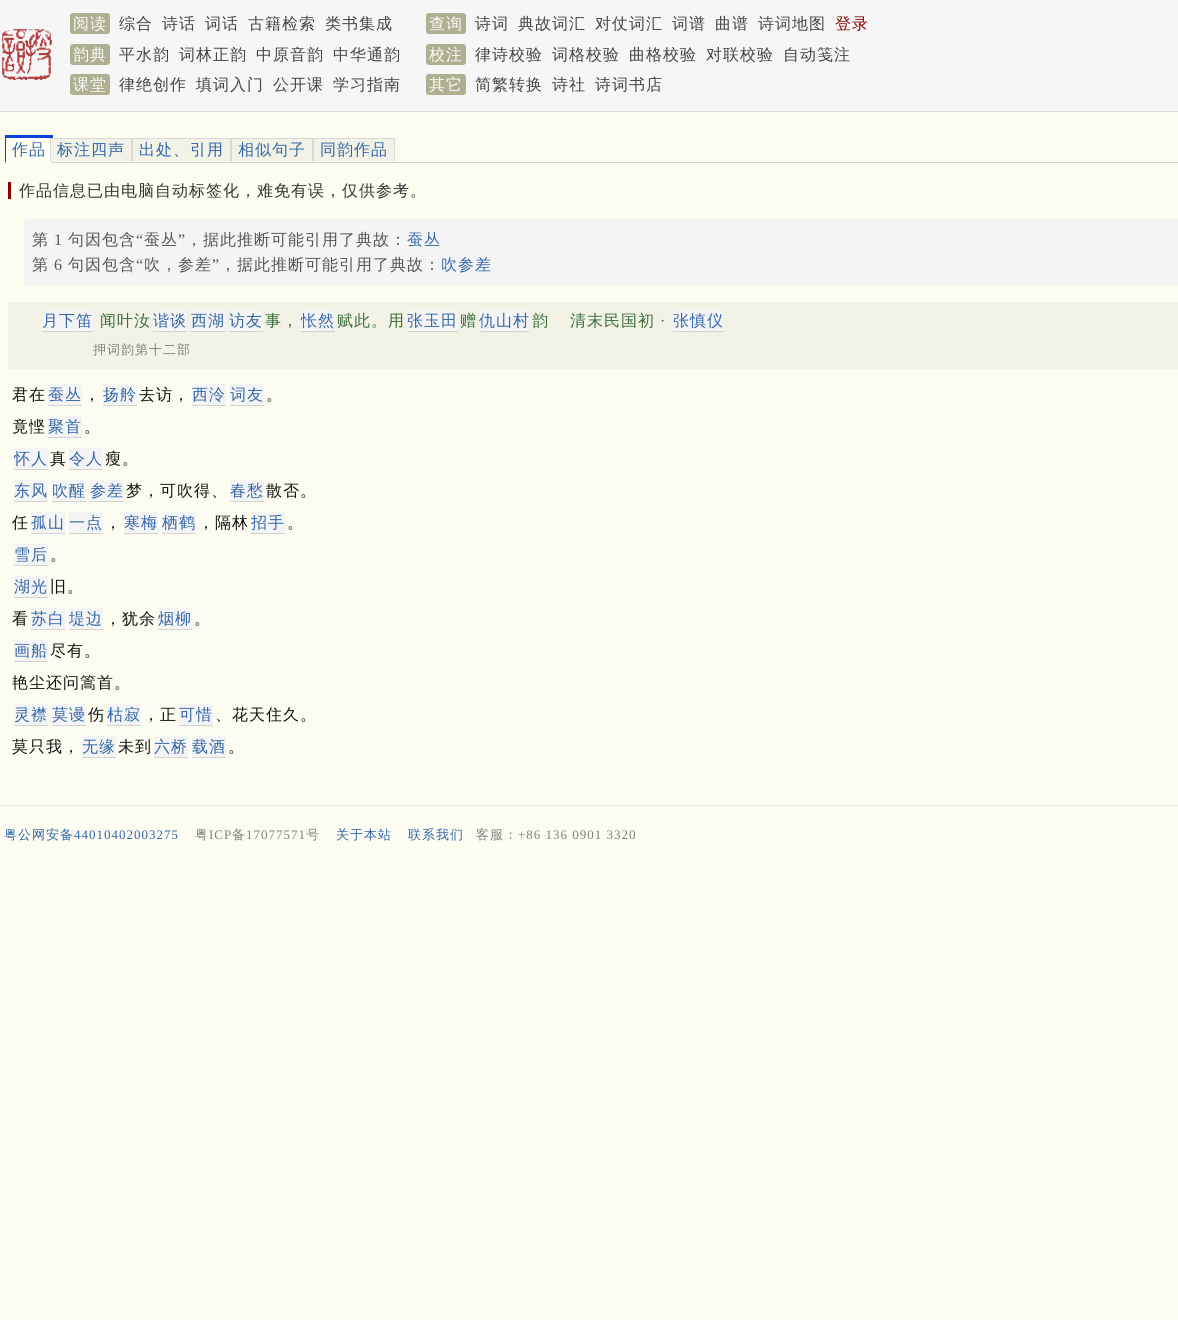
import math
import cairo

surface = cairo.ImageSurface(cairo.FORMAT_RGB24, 1178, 1320)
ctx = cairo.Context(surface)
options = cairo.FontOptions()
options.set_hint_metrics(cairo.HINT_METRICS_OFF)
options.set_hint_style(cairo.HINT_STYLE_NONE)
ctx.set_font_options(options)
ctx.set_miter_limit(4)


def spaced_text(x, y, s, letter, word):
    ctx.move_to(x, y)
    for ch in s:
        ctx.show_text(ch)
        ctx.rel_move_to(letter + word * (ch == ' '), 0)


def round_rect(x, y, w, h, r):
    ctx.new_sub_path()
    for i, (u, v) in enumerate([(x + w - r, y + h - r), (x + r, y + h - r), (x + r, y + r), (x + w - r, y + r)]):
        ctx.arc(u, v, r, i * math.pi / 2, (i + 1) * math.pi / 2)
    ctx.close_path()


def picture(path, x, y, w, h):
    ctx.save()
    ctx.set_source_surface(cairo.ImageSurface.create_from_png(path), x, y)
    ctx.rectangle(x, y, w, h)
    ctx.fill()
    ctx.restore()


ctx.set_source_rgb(0.988, 0.988, 0.945)
ctx.paint()
ctx.set_source_rgb(0.961, 0.961, 0.961)
ctx.rectangle(0, 0, 1178, 111)
ctx.fill()
ctx.set_source_rgb(0.867, 0.867, 0.867)
ctx.rectangle(0, 111, 1178, 1)
ctx.fill()
ctx.set_source_rgb(0.686, 0.686, 0.573)
round_rect(70, 13, 40, 21, 3)
ctx.fill()
ctx.select_font_face("WenQuanYi Zen Hei Medium")
ctx.set_font_size(16)
ctx.set_source_rgb(0.984, 0.984, 0.984)
spaced_text(73, 29, "阅读", 1, 0)
ctx.set_source_rgb(0.267, 0.267, 0.267)
spaced_text(119, 29, "综合", 1, 0)
spaced_text(162, 29, "诗话", 1, 0)
spaced_text(205, 29, "词话", 1, 0)
spaced_text(248, 29, "古籍检索", 1, 0)
spaced_text(325, 29, "类书集成", 1, 0)
ctx.set_source_rgb(0.686, 0.686, 0.573)
round_rect(426, 13, 40, 21, 3)
ctx.fill()
ctx.set_source_rgb(0.984, 0.984, 0.984)
spaced_text(429, 29, "查询", 1, 0)
ctx.set_source_rgb(0.267, 0.267, 0.267)
spaced_text(475, 29, "诗词", 1, 0)
spaced_text(518, 29, "典故词汇", 1, 0)
spaced_text(595, 29, "对仗词汇", 1, 0)
spaced_text(672, 29, "词谱", 1, 0)
spaced_text(715, 29, "曲谱", 1, 0)
spaced_text(758, 29, "诗词地图", 1, 0)
ctx.set_source_rgb(0.545, 0, 0)
spaced_text(835, 29, "登录", 1, 0)
picture("img1.png", 2, 29, 50, 51)
ctx.set_source_rgb(0.686, 0.686, 0.573)
round_rect(70, 44, 40, 21, 3)
ctx.fill()
ctx.set_source_rgb(0.984, 0.984, 0.984)
spaced_text(73, 60, "韵典", 1, 0)
ctx.set_source_rgb(0.267, 0.267, 0.267)
spaced_text(119, 60, "平水韵", 1, 0)
spaced_text(179, 60, "词林正韵", 1, 0)
spaced_text(256, 60, "中原音韵", 1, 0)
spaced_text(333, 60, "中华通韵", 1, 0)
ctx.set_source_rgb(0.686, 0.686, 0.573)
round_rect(426, 44, 40, 21, 3)
ctx.fill()
ctx.set_source_rgb(0.984, 0.984, 0.984)
spaced_text(429, 60, "校注", 1, 0)
ctx.set_source_rgb(0.267, 0.267, 0.267)
spaced_text(475, 60, "律诗校验", 1, 0)
spaced_text(552, 60, "词格校验", 1, 0)
spaced_text(629, 60, "曲格校验", 1, 0)
spaced_text(706, 60, "对联校验", 1, 0)
spaced_text(783, 60, "自动笺注", 1, 0)
ctx.set_source_rgb(0.686, 0.686, 0.573)
round_rect(70, 74, 40, 21, 3)
ctx.fill()
ctx.set_source_rgb(0.984, 0.984, 0.984)
spaced_text(73, 90, "课堂", 1, 0)
ctx.set_source_rgb(0.267, 0.267, 0.267)
spaced_text(119, 90, "律绝创作", 1, 0)
spaced_text(196, 90, "填词入门", 1, 0)
spaced_text(273, 90, "公开课", 1, 0)
spaced_text(333, 90, "学习指南", 1, 0)
ctx.set_source_rgb(0.686, 0.686, 0.573)
round_rect(426, 74, 40, 21, 3)
ctx.fill()
ctx.set_source_rgb(0.984, 0.984, 0.984)
spaced_text(429, 90, "其它", 1, 0)
ctx.set_source_rgb(0.267, 0.267, 0.267)
spaced_text(475, 90, "简繁转换", 1, 0)
spaced_text(552, 90, "诗社", 1, 0)
spaced_text(595, 90, "诗词书店", 1, 0)
ctx.set_source_rgb(0.827, 0.827, 0.827)
ctx.rectangle(52, 162, 1126, 1)
ctx.fill()
ctx.set_source_rgb(1, 0.996, 0.957)
ctx.rectangle(6, 138, 44, 23)
ctx.fill()
ctx.set_source_rgb(0.2, 0.4, 0.667)
spaced_text(12, 155, "作品", 1, 0)
ctx.set_source_rgb(0.035, 0.255, 0.851)
ctx.rectangle(5, 135, 48, 3)
ctx.fill()
ctx.new_path()
ctx.move_to(53, 135)
ctx.line_to(53, 164)
ctx.line_to(52, 161)
ctx.line_to(52, 138)
ctx.close_path()
ctx.fill()
ctx.set_source_rgb(0.988, 0.988, 0.945)
ctx.new_path()
ctx.move_to(53, 164)
ctx.line_to(5, 164)
ctx.line_to(6, 161)
ctx.line_to(52, 161)
ctx.close_path()
ctx.fill()
ctx.set_source_rgb(0.035, 0.255, 0.851)
ctx.new_path()
ctx.move_to(5, 164)
ctx.line_to(5, 135)
ctx.line_to(6, 138)
ctx.line_to(6, 161)
ctx.close_path()
ctx.fill()
ctx.set_source_rgb(0.949, 0.949, 0.906)
ctx.rectangle(51, 139, 80, 22)
ctx.fill()
ctx.set_source_rgb(0.2, 0.4, 0.667)
spaced_text(57, 155, "标注四声", 1, 0)
ctx.set_source_rgb(0.847, 0.847, 0.847)
ctx.rectangle(50, 138, 345, 1)
ctx.fill()
ctx.rectangle(131, 138, 2, 24)
ctx.fill()
ctx.set_source_rgb(0.988, 0.988, 0.945)
ctx.rectangle(50, 161, 82, 1)
ctx.fill()
ctx.set_source_rgb(0.847, 0.847, 0.847)
ctx.rectangle(50, 138, 1, 24)
ctx.fill()
ctx.set_source_rgb(0.949, 0.949, 0.906)
ctx.rectangle(133, 139, 97, 22)
ctx.fill()
ctx.set_source_rgb(0.2, 0.4, 0.667)
spaced_text(139, 155, "出处、引用", 1, 0)
ctx.set_source_rgb(0.847, 0.847, 0.847)
ctx.rectangle(230, 138, 2, 24)
ctx.fill()
ctx.set_source_rgb(0.988, 0.988, 0.945)
ctx.rectangle(230, 161, 1, 1)
ctx.fill()
ctx.set_source_rgb(0.949, 0.949, 0.906)
ctx.rectangle(232, 139, 80, 22)
ctx.fill()
ctx.set_source_rgb(0.2, 0.4, 0.667)
spaced_text(238, 155, "相似句子", 1, 0)
ctx.set_source_rgb(0.847, 0.847, 0.847)
ctx.rectangle(312, 138, 2, 24)
ctx.fill()
ctx.set_source_rgb(0.988, 0.988, 0.945)
ctx.rectangle(312, 161, 1, 1)
ctx.fill()
ctx.set_source_rgb(0.949, 0.949, 0.906)
ctx.rectangle(314, 139, 80, 22)
ctx.fill()
ctx.set_source_rgb(0.2, 0.4, 0.667)
spaced_text(320, 155, "同韵作品", 1, 0)
ctx.set_source_rgb(0.847, 0.847, 0.847)
ctx.rectangle(394, 138, 1, 24)
ctx.fill()
ctx.set_source_rgb(0.988, 0.988, 0.945)
ctx.rectangle(394, 161, 1, 1)
ctx.fill()
ctx.set_source_rgb(0.2, 0.2, 0.2)
spaced_text(19, 196, "作品信息已由电脑自动标签化，难免有误，仅供参考。", 1, 0)
ctx.set_source_rgb(0.545, 0, 0)
ctx.rectangle(8, 182, 3, 17)
ctx.fill()
ctx.set_source_rgb(0.957, 0.957, 0.957)
round_rect(24, 219, 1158, 67, 4)
ctx.fill()
ctx.set_source_rgb(0.333, 0.333, 0.333)
spaced_text(32, 245, "第", 1, 0)
ctx.select_font_face("Liberation Serif")
spaced_text(54, 245, "1", 1, 0)
ctx.select_font_face("WenQuanYi Zen Hei Medium")
spaced_text(68, 245, "句因包含", 1, 0)
ctx.select_font_face("Liberation Serif")
spaced_text(136, 245, "“", 1, 0)
ctx.select_font_face("WenQuanYi Zen Hei Medium")
spaced_text(144, 245, "蚕丛", 1, 0)
ctx.select_font_face("Liberation Serif")
spaced_text(178, 245, "”", 1, 0)
ctx.select_font_face("WenQuanYi Zen Hei Medium")
spaced_text(186, 245, "，据此推断可能引用了典故：", 1, 0)
ctx.set_source_rgb(0.2, 0.4, 0.667)
spaced_text(407, 245, "蚕丛", 1, 0)
ctx.set_source_rgb(0.333, 0.333, 0.333)
spaced_text(32, 270, "第", 1, 0)
ctx.select_font_face("Liberation Serif")
spaced_text(54, 270, "6", 1, 0)
ctx.select_font_face("WenQuanYi Zen Hei Medium")
spaced_text(68, 270, "句因包含", 1, 0)
ctx.select_font_face("Liberation Serif")
spaced_text(136, 270, "“", 1, 0)
ctx.select_font_face("WenQuanYi Zen Hei Medium")
spaced_text(144, 270, "吹，参差", 1, 0)
ctx.select_font_face("Liberation Serif")
spaced_text(212, 270, "”", 1, 0)
ctx.select_font_face("WenQuanYi Zen Hei Medium")
spaced_text(220, 270, "，据此推断可能引用了典故：", 1, 0)
ctx.set_source_rgb(0.2, 0.4, 0.667)
spaced_text(441, 270, "吹参差", 1, 0)
ctx.set_source_rgb(0.949, 0.949, 0.906)
ctx.rectangle(8, 302, 1170, 67)
ctx.fill()
ctx.set_source_rgb(0.957, 0.957, 0.957)
ctx.rectangle(42, 310, 51, 21)
ctx.fill()
ctx.set_source_rgb(0.2, 0.4, 0.667)
spaced_text(42, 326, "月下笛", 1, 0)
ctx.set_source_rgb(0.827, 0.827, 0.827)
ctx.rectangle(42, 331, 51, 1)
ctx.fill()
ctx.set_source_rgb(0.231, 0.431, 0.227)
spaced_text(100, 326, "闻叶汝", 1, 0)
ctx.set_source_rgb(0.957, 0.957, 0.957)
ctx.rectangle(153, 310, 34, 21)
ctx.fill()
ctx.set_source_rgb(0.2, 0.4, 0.667)
spaced_text(153, 326, "谐谈", 1, 0)
ctx.set_source_rgb(0.827, 0.827, 0.827)
ctx.rectangle(153, 331, 34, 1)
ctx.fill()
ctx.set_source_rgb(0.957, 0.957, 0.957)
ctx.rectangle(191, 310, 34, 21)
ctx.fill()
ctx.set_source_rgb(0.2, 0.4, 0.667)
spaced_text(191, 326, "西湖", 1, 0)
ctx.set_source_rgb(0.827, 0.827, 0.827)
ctx.rectangle(191, 331, 34, 1)
ctx.fill()
ctx.set_source_rgb(0.957, 0.957, 0.957)
ctx.rectangle(229, 310, 34, 21)
ctx.fill()
ctx.set_source_rgb(0.2, 0.4, 0.667)
spaced_text(229, 326, "访友", 1, 0)
ctx.set_source_rgb(0.827, 0.827, 0.827)
ctx.rectangle(229, 331, 34, 1)
ctx.fill()
ctx.set_source_rgb(0.231, 0.431, 0.227)
spaced_text(265, 326, "事，", 1, 0)
ctx.set_source_rgb(0.957, 0.957, 0.957)
ctx.rectangle(301, 310, 34, 21)
ctx.fill()
ctx.set_source_rgb(0.2, 0.4, 0.667)
spaced_text(301, 326, "怅然", 1, 0)
ctx.set_source_rgb(0.827, 0.827, 0.827)
ctx.rectangle(301, 331, 34, 1)
ctx.fill()
ctx.set_source_rgb(0.231, 0.431, 0.227)
spaced_text(337, 326, "赋此。用", 1, 0)
ctx.set_source_rgb(0.957, 0.957, 0.957)
ctx.rectangle(407, 310, 51, 21)
ctx.fill()
ctx.set_source_rgb(0.2, 0.4, 0.667)
spaced_text(407, 326, "张玉田", 1, 0)
ctx.set_source_rgb(0.827, 0.827, 0.827)
ctx.rectangle(407, 331, 51, 1)
ctx.fill()
ctx.set_source_rgb(0.231, 0.431, 0.227)
spaced_text(460, 326, "赠", 1, 0)
ctx.set_source_rgb(0.957, 0.957, 0.957)
ctx.rectangle(479, 310, 51, 21)
ctx.fill()
ctx.set_source_rgb(0.2, 0.4, 0.667)
spaced_text(479, 326, "仇山村", 1, 0)
ctx.set_source_rgb(0.827, 0.827, 0.827)
ctx.rectangle(479, 331, 51, 1)
ctx.fill()
ctx.set_source_rgb(0.231, 0.431, 0.227)
spaced_text(532, 326, "韵", 1, 0)
spaced_text(570, 326, "清末民国初", 1, 0)
ctx.select_font_face("Liberation Serif")
spaced_text(660, 326, "·", 1, 0)
ctx.set_source_rgb(0.957, 0.957, 0.957)
ctx.rectangle(673, 310, 51, 21)
ctx.fill()
ctx.select_font_face("WenQuanYi Zen Hei Medium")
ctx.set_source_rgb(0.2, 0.4, 0.667)
spaced_text(673, 326, "张慎仪", 1, 0)
ctx.set_source_rgb(0.827, 0.827, 0.827)
ctx.rectangle(673, 331, 51, 1)
ctx.fill()
ctx.set_font_size(13)
ctx.set_source_rgb(0.502, 0.502, 0.502)
spaced_text(93, 354, "押词韵第十二部", 1, 0)
ctx.set_font_size(16)
ctx.set_source_rgb(0.067, 0.067, 0.067)
spaced_text(12, 400, "君在", 1, 0)
ctx.set_source_rgb(0.957, 0.957, 0.957)
ctx.rectangle(48, 384, 34, 21)
ctx.fill()
ctx.set_source_rgb(0.2, 0.4, 0.667)
spaced_text(48, 400, "蚕丛", 1, 0)
ctx.set_source_rgb(0.827, 0.827, 0.827)
ctx.rectangle(48, 405, 34, 1)
ctx.fill()
ctx.set_source_rgb(0.067, 0.067, 0.067)
spaced_text(84, 400, "，", 1, 0)
ctx.set_source_rgb(0.957, 0.957, 0.957)
ctx.rectangle(103, 384, 34, 21)
ctx.fill()
ctx.set_source_rgb(0.2, 0.4, 0.667)
spaced_text(103, 400, "扬舲", 1, 0)
ctx.set_source_rgb(0.827, 0.827, 0.827)
ctx.rectangle(103, 405, 34, 1)
ctx.fill()
ctx.set_source_rgb(0.067, 0.067, 0.067)
spaced_text(139, 400, "去访，", 1, 0)
ctx.set_source_rgb(0.957, 0.957, 0.957)
ctx.rectangle(192, 384, 34, 21)
ctx.fill()
ctx.set_source_rgb(0.2, 0.4, 0.667)
spaced_text(192, 400, "西泠", 1, 0)
ctx.set_source_rgb(0.827, 0.827, 0.827)
ctx.rectangle(192, 405, 34, 1)
ctx.fill()
ctx.set_source_rgb(0.957, 0.957, 0.957)
ctx.rectangle(230, 384, 34, 21)
ctx.fill()
ctx.set_source_rgb(0.2, 0.4, 0.667)
spaced_text(230, 400, "词友", 1, 0)
ctx.set_source_rgb(0.827, 0.827, 0.827)
ctx.rectangle(230, 405, 34, 1)
ctx.fill()
ctx.set_source_rgb(0.067, 0.067, 0.067)
spaced_text(266, 400, "。", 1, 0)
spaced_text(12, 432, "竟悭", 1, 0)
ctx.set_source_rgb(0.957, 0.957, 0.957)
ctx.rectangle(48, 416, 34, 21)
ctx.fill()
ctx.set_source_rgb(0.2, 0.4, 0.667)
spaced_text(48, 432, "聚首", 1, 0)
ctx.set_source_rgb(0.827, 0.827, 0.827)
ctx.rectangle(48, 437, 34, 1)
ctx.fill()
ctx.set_source_rgb(0.067, 0.067, 0.067)
spaced_text(84, 432, "。", 1, 0)
ctx.set_source_rgb(0.957, 0.957, 0.957)
ctx.rectangle(14, 448, 34, 21)
ctx.fill()
ctx.set_source_rgb(0.2, 0.4, 0.667)
spaced_text(14, 464, "怀人", 1, 0)
ctx.set_source_rgb(0.827, 0.827, 0.827)
ctx.rectangle(14, 469, 34, 1)
ctx.fill()
ctx.set_source_rgb(0.067, 0.067, 0.067)
spaced_text(50, 464, "真", 1, 0)
ctx.set_source_rgb(0.957, 0.957, 0.957)
ctx.rectangle(69, 448, 34, 21)
ctx.fill()
ctx.set_source_rgb(0.2, 0.4, 0.667)
spaced_text(69, 464, "令人", 1, 0)
ctx.set_source_rgb(0.827, 0.827, 0.827)
ctx.rectangle(69, 469, 34, 1)
ctx.fill()
ctx.set_source_rgb(0.067, 0.067, 0.067)
spaced_text(105, 464, "瘦。", 1, 0)
ctx.set_source_rgb(0.957, 0.957, 0.957)
ctx.rectangle(14, 480, 34, 21)
ctx.fill()
ctx.set_source_rgb(0.2, 0.4, 0.667)
spaced_text(14, 496, "东风", 1, 0)
ctx.set_source_rgb(0.827, 0.827, 0.827)
ctx.rectangle(14, 501, 34, 1)
ctx.fill()
ctx.set_source_rgb(0.957, 0.957, 0.957)
ctx.rectangle(52, 480, 34, 21)
ctx.fill()
ctx.set_source_rgb(0.2, 0.4, 0.667)
spaced_text(52, 496, "吹醒", 1, 0)
ctx.set_source_rgb(0.827, 0.827, 0.827)
ctx.rectangle(52, 501, 34, 1)
ctx.fill()
ctx.set_source_rgb(0.957, 0.957, 0.957)
ctx.rectangle(90, 480, 34, 21)
ctx.fill()
ctx.set_source_rgb(0.2, 0.4, 0.667)
spaced_text(90, 496, "参差", 1, 0)
ctx.set_source_rgb(0.827, 0.827, 0.827)
ctx.rectangle(90, 501, 34, 1)
ctx.fill()
ctx.set_source_rgb(0.067, 0.067, 0.067)
spaced_text(126, 496, "梦，可吹得、", 1, 0)
ctx.set_source_rgb(0.957, 0.957, 0.957)
ctx.rectangle(230, 480, 34, 21)
ctx.fill()
ctx.set_source_rgb(0.2, 0.4, 0.667)
spaced_text(230, 496, "春愁", 1, 0)
ctx.set_source_rgb(0.827, 0.827, 0.827)
ctx.rectangle(230, 501, 34, 1)
ctx.fill()
ctx.set_source_rgb(0.067, 0.067, 0.067)
spaced_text(266, 496, "散否。", 1, 0)
spaced_text(12, 528, "任", 1, 0)
ctx.set_source_rgb(0.957, 0.957, 0.957)
ctx.rectangle(31, 512, 34, 21)
ctx.fill()
ctx.set_source_rgb(0.2, 0.4, 0.667)
spaced_text(31, 528, "孤山", 1, 0)
ctx.set_source_rgb(0.827, 0.827, 0.827)
ctx.rectangle(31, 533, 34, 1)
ctx.fill()
ctx.set_source_rgb(0.957, 0.957, 0.957)
ctx.rectangle(69, 512, 34, 21)
ctx.fill()
ctx.set_source_rgb(0.2, 0.4, 0.667)
spaced_text(69, 528, "一点", 1, 0)
ctx.set_source_rgb(0.827, 0.827, 0.827)
ctx.rectangle(69, 533, 34, 1)
ctx.fill()
ctx.set_source_rgb(0.067, 0.067, 0.067)
spaced_text(105, 528, "，", 1, 0)
ctx.set_source_rgb(0.957, 0.957, 0.957)
ctx.rectangle(124, 512, 34, 21)
ctx.fill()
ctx.set_source_rgb(0.2, 0.4, 0.667)
spaced_text(124, 528, "寒梅", 1, 0)
ctx.set_source_rgb(0.827, 0.827, 0.827)
ctx.rectangle(124, 533, 34, 1)
ctx.fill()
ctx.set_source_rgb(0.957, 0.957, 0.957)
ctx.rectangle(162, 512, 34, 21)
ctx.fill()
ctx.set_source_rgb(0.2, 0.4, 0.667)
spaced_text(162, 528, "栖鹤", 1, 0)
ctx.set_source_rgb(0.827, 0.827, 0.827)
ctx.rectangle(162, 533, 34, 1)
ctx.fill()
ctx.set_source_rgb(0.067, 0.067, 0.067)
spaced_text(198, 528, "，隔林", 1, 0)
ctx.set_source_rgb(0.957, 0.957, 0.957)
ctx.rectangle(251, 512, 34, 21)
ctx.fill()
ctx.set_source_rgb(0.2, 0.4, 0.667)
spaced_text(251, 528, "招手", 1, 0)
ctx.set_source_rgb(0.827, 0.827, 0.827)
ctx.rectangle(251, 533, 34, 1)
ctx.fill()
ctx.set_source_rgb(0.067, 0.067, 0.067)
spaced_text(287, 528, "。", 1, 0)
ctx.set_source_rgb(0.957, 0.957, 0.957)
ctx.rectangle(14, 544, 34, 21)
ctx.fill()
ctx.set_source_rgb(0.2, 0.4, 0.667)
spaced_text(14, 560, "雪后", 1, 0)
ctx.set_source_rgb(0.827, 0.827, 0.827)
ctx.rectangle(14, 565, 34, 1)
ctx.fill()
ctx.set_source_rgb(0.067, 0.067, 0.067)
spaced_text(50, 560, "。", 1, 0)
ctx.set_source_rgb(0.957, 0.957, 0.957)
ctx.rectangle(14, 576, 34, 21)
ctx.fill()
ctx.set_source_rgb(0.2, 0.4, 0.667)
spaced_text(14, 592, "湖光", 1, 0)
ctx.set_source_rgb(0.827, 0.827, 0.827)
ctx.rectangle(14, 597, 34, 1)
ctx.fill()
ctx.set_source_rgb(0.067, 0.067, 0.067)
spaced_text(50, 592, "旧。", 1, 0)
spaced_text(12, 624, "看", 1, 0)
ctx.set_source_rgb(0.957, 0.957, 0.957)
ctx.rectangle(31, 608, 34, 21)
ctx.fill()
ctx.set_source_rgb(0.2, 0.4, 0.667)
spaced_text(31, 624, "苏白", 1, 0)
ctx.set_source_rgb(0.827, 0.827, 0.827)
ctx.rectangle(31, 629, 34, 1)
ctx.fill()
ctx.set_source_rgb(0.957, 0.957, 0.957)
ctx.rectangle(69, 608, 34, 21)
ctx.fill()
ctx.set_source_rgb(0.2, 0.4, 0.667)
spaced_text(69, 624, "堤边", 1, 0)
ctx.set_source_rgb(0.827, 0.827, 0.827)
ctx.rectangle(69, 629, 34, 1)
ctx.fill()
ctx.set_source_rgb(0.067, 0.067, 0.067)
spaced_text(105, 624, "，犹余", 1, 0)
ctx.set_source_rgb(0.957, 0.957, 0.957)
ctx.rectangle(158, 608, 34, 21)
ctx.fill()
ctx.set_source_rgb(0.2, 0.4, 0.667)
spaced_text(158, 624, "烟柳", 1, 0)
ctx.set_source_rgb(0.827, 0.827, 0.827)
ctx.rectangle(158, 629, 34, 1)
ctx.fill()
ctx.set_source_rgb(0.067, 0.067, 0.067)
spaced_text(194, 624, "。", 1, 0)
ctx.set_source_rgb(0.957, 0.957, 0.957)
ctx.rectangle(14, 640, 34, 21)
ctx.fill()
ctx.set_source_rgb(0.2, 0.4, 0.667)
spaced_text(14, 656, "画船", 1, 0)
ctx.set_source_rgb(0.827, 0.827, 0.827)
ctx.rectangle(14, 661, 34, 1)
ctx.fill()
ctx.set_source_rgb(0.067, 0.067, 0.067)
spaced_text(50, 656, "尽有。", 1, 0)
spaced_text(12, 688, "艳尘还问篙首。", 1, 0)
ctx.set_source_rgb(0.957, 0.957, 0.957)
ctx.rectangle(14, 704, 34, 21)
ctx.fill()
ctx.set_source_rgb(0.2, 0.4, 0.667)
spaced_text(14, 720, "灵襟", 1, 0)
ctx.set_source_rgb(0.827, 0.827, 0.827)
ctx.rectangle(14, 725, 34, 1)
ctx.fill()
ctx.set_source_rgb(0.957, 0.957, 0.957)
ctx.rectangle(52, 704, 34, 21)
ctx.fill()
ctx.set_source_rgb(0.2, 0.4, 0.667)
spaced_text(52, 720, "莫谩", 1, 0)
ctx.set_source_rgb(0.827, 0.827, 0.827)
ctx.rectangle(52, 725, 34, 1)
ctx.fill()
ctx.set_source_rgb(0.067, 0.067, 0.067)
spaced_text(88, 720, "伤", 1, 0)
ctx.set_source_rgb(0.957, 0.957, 0.957)
ctx.rectangle(107, 704, 34, 21)
ctx.fill()
ctx.set_source_rgb(0.2, 0.4, 0.667)
spaced_text(107, 720, "枯寂", 1, 0)
ctx.set_source_rgb(0.827, 0.827, 0.827)
ctx.rectangle(107, 725, 34, 1)
ctx.fill()
ctx.set_source_rgb(0.067, 0.067, 0.067)
spaced_text(143, 720, "，正", 1, 0)
ctx.set_source_rgb(0.957, 0.957, 0.957)
ctx.rectangle(179, 704, 34, 21)
ctx.fill()
ctx.set_source_rgb(0.2, 0.4, 0.667)
spaced_text(179, 720, "可惜", 1, 0)
ctx.set_source_rgb(0.827, 0.827, 0.827)
ctx.rectangle(179, 725, 34, 1)
ctx.fill()
ctx.set_source_rgb(0.067, 0.067, 0.067)
spaced_text(215, 720, "、花天住久。", 1, 0)
spaced_text(12, 752, "莫只我，", 1, 0)
ctx.set_source_rgb(0.957, 0.957, 0.957)
ctx.rectangle(82, 736, 34, 21)
ctx.fill()
ctx.set_source_rgb(0.2, 0.4, 0.667)
spaced_text(82, 752, "无缘", 1, 0)
ctx.set_source_rgb(0.827, 0.827, 0.827)
ctx.rectangle(82, 757, 34, 1)
ctx.fill()
ctx.set_source_rgb(0.067, 0.067, 0.067)
spaced_text(118, 752, "未到", 1, 0)
ctx.set_source_rgb(0.957, 0.957, 0.957)
ctx.rectangle(154, 736, 34, 21)
ctx.fill()
ctx.set_source_rgb(0.2, 0.4, 0.667)
spaced_text(154, 752, "六桥", 1, 0)
ctx.set_source_rgb(0.827, 0.827, 0.827)
ctx.rectangle(154, 757, 34, 1)
ctx.fill()
ctx.set_source_rgb(0.957, 0.957, 0.957)
ctx.rectangle(192, 736, 34, 21)
ctx.fill()
ctx.set_source_rgb(0.2, 0.4, 0.667)
spaced_text(192, 752, "载酒", 1, 0)
ctx.set_source_rgb(0.827, 0.827, 0.827)
ctx.rectangle(192, 757, 34, 1)
ctx.fill()
ctx.set_source_rgb(0.067, 0.067, 0.067)
spaced_text(228, 752, "。", 1, 0)
ctx.set_source_rgb(0.898, 0.898, 0.898)
ctx.rectangle(0, 805, 1178, 1)
ctx.fill()
ctx.set_font_size(13)
ctx.set_source_rgb(0.2, 0.4, 0.667)
spaced_text(4, 839, "粤公网安备", 1, 0)
ctx.select_font_face("Liberation Serif")
spaced_text(74, 839, "44010402003275", 1, 0)
ctx.select_font_face("WenQuanYi Zen Hei Medium")
ctx.set_source_rgb(0.502, 0.502, 0.502)
spaced_text(195, 839, "粤", 1, 0)
ctx.select_font_face("Liberation Serif")
spaced_text(209, 839, "ICP", 1, 0)
ctx.select_font_face("WenQuanYi Zen Hei Medium")
spaced_text(232, 839, "备", 1, 0)
ctx.select_font_face("Liberation Serif")
spaced_text(246, 839, "17077571", 1, 0)
ctx.select_font_face("WenQuanYi Zen Hei Medium")
spaced_text(306, 839, "号", 1, 0)
ctx.set_source_rgb(0.2, 0.4, 0.667)
spaced_text(336, 839, "关于本站", 1, 0)
spaced_text(408, 839, "联系我们", 1, 0)
ctx.set_source_rgb(0.502, 0.502, 0.502)
spaced_text(476, 839, "客服：", 1, 0)
ctx.select_font_face("Liberation Serif")
spaced_text(518, 839, "+86 136 0901 3320", 1, 0)
surface.write_to_png("page.png")
